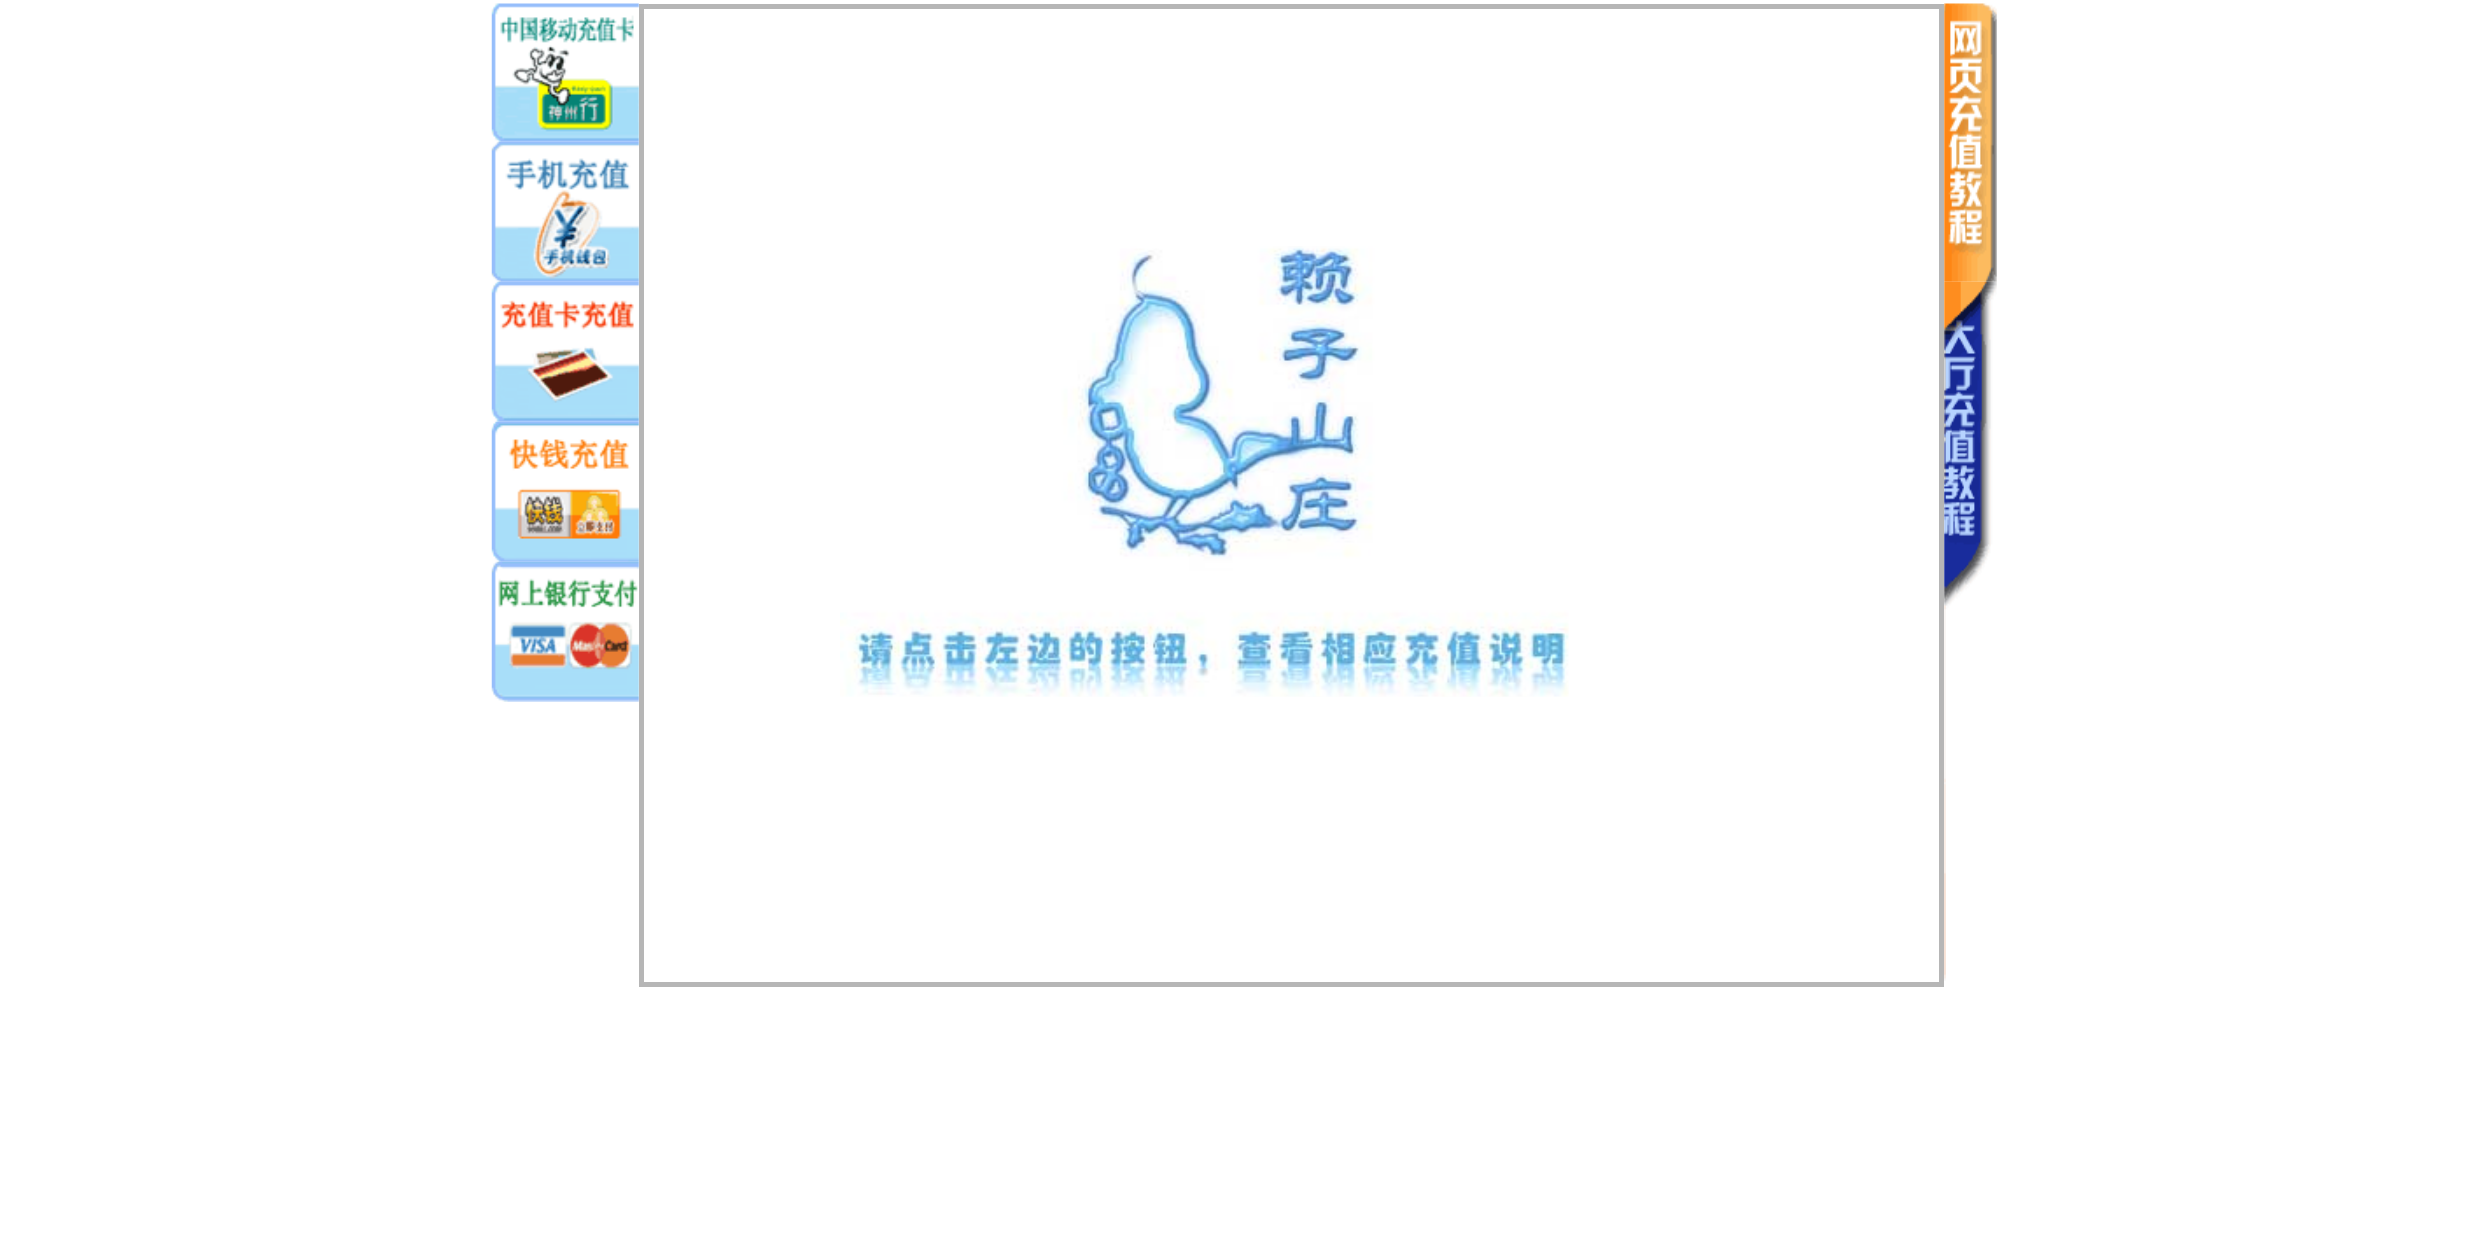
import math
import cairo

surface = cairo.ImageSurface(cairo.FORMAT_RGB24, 2487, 1241)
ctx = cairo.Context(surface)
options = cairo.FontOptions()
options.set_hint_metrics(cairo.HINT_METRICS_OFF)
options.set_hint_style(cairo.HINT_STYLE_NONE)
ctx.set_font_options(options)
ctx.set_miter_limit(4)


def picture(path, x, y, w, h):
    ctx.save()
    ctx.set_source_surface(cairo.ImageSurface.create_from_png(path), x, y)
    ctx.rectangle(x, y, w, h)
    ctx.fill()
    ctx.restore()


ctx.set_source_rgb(1, 1, 1)
ctx.paint()
picture("img1.png", 491, 3, 148, 139)
picture("img2.png", 491, 141, 148, 141)
picture("img3.png", 491, 281, 148, 141)
picture("img4.png", 491, 421, 148, 141)
picture("img5.png", 491, 561, 148, 141)
ctx.rectangle(641.5, 6.5, 1300, 978)
ctx.set_source_rgb(0.714, 0.714, 0.714)
ctx.set_line_width(5)
ctx.stroke()
picture("img6.png", 840, 246, 729, 451)
picture("img7.png", 1944, 3, 53, 279)
picture("img8.png", 1944, 281, 53, 700)
surface.write_to_png("page.png")
